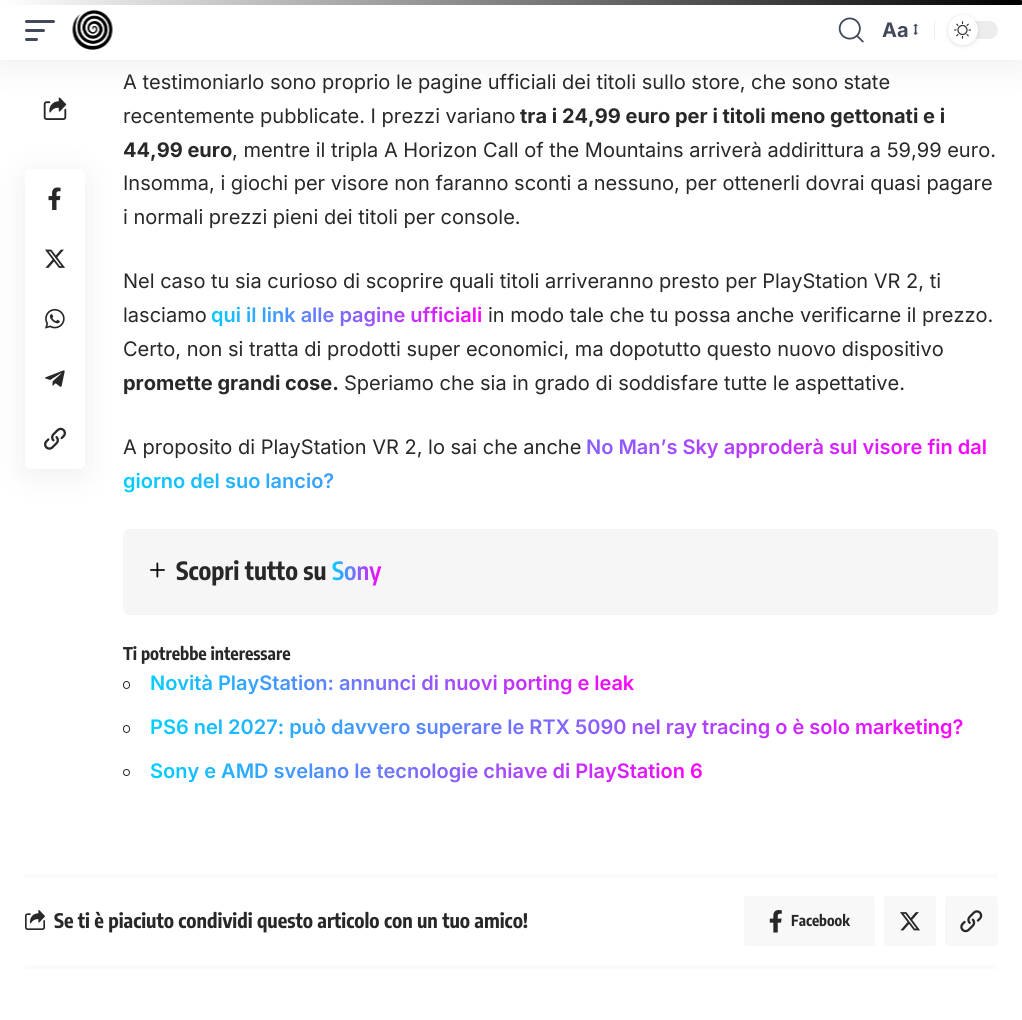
import math
import cairo

surface = cairo.ImageSurface(cairo.FORMAT_RGB24, 1022, 1020)
ctx = cairo.Context(surface)
options = cairo.FontOptions()
options.set_hint_metrics(cairo.HINT_METRICS_OFF)
options.set_hint_style(cairo.HINT_STYLE_NONE)
ctx.set_font_options(options)
ctx.set_miter_limit(4)


def round_rect(x, y, w, h, r):
    ctx.new_sub_path()
    for i, (u, v) in enumerate([(x + w - r, y + h - r), (x + r, y + h - r), (x + r, y + r), (x + w - r, y + r)]):
        ctx.arc(u, v, r, i * math.pi / 2, (i + 1) * math.pi / 2)
    ctx.close_path()


def shadow(x, y, w, h, r, blur, alpha):
    ctx.push_group_with_content(cairo.CONTENT_ALPHA)
    ctx.set_operator(cairo.OPERATOR_SOURCE)
    for i in range(15, -16, -2):
        e = blur * i / 6
        if min(w, h) + 2 * e > 0:
            ctx.set_source_rgba(0, 0, 0, alpha * math.erfc((i - 1) / 8.5) / 2)
            round_rect(x - e, y - e, w + 2 * e, h + 2 * e, max(0, min(r + e + blur * .6, min(w, h) / 2 + e)))
            ctx.fill()
    ctx.mask(ctx.pop_group())


def picture(path, x, y, w, h):
    ctx.save()
    ctx.set_source_surface(cairo.ImageSurface.create_from_png(path), x, y)
    ctx.rectangle(x, y, w, h)
    ctx.fill()
    ctx.restore()


ctx.set_source_rgb(1, 1, 1)
ctx.paint()
ctx.set_source_rgb(0, 0, 0)
shadow(25, 175, 60, 300, 6, 19, 0.07)
picture("img5.png", 43, 97, 24, 23)
shadow(0, 5, 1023, 60, 0, 19, 0.07)
ctx.set_source_rgb(1, 1, 1)
ctx.rectangle(0, 0, 1022, 60)
ctx.fill()
gradient = cairo.LinearGradient(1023, 2.5, 0, 2.5)
gradient.add_color_stop_rgba(0, 0, 0, 0, 1)
gradient.add_color_stop_rgba(1, 1, 1, 1, 1)
ctx.set_source(gradient)
ctx.new_path()
ctx.move_to(0, 0)
ctx.line_to(1020.5, 0)
ctx.curve_to(1022, 0, 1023, 1, 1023, 2.5)
ctx.curve_to(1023, 4, 1022, 5, 1020.5, 5)
ctx.line_to(0, 5)
ctx.close_path()
ctx.fill()
ctx.set_source_rgb(0.255, 0.286, 0.353)
round_rect(25, 20, 30, 3, 1.5)
ctx.fill()
round_rect(25, 29, 20, 3, 1.5)
ctx.fill()
round_rect(25, 38, 13, 3, 1.5)
ctx.fill()
picture("img1.png", 72, 10, 41, 40)
picture("img2.png", 838, 17, 26, 26)
ctx.select_font_face("Inter", cairo.FONT_SLANT_NORMAL, cairo.FONT_WEIGHT_BOLD)
ctx.set_font_size(20)
ctx.move_to(882, 37)
ctx.show_text("Aa")
picture("img3.png", 913, 23, 5, 12)
ctx.set_source_rgb(0.925, 0.929, 0.937)
ctx.rectangle(934, 21, 1, 18)
ctx.fill()
ctx.set_source_rgb(0.929, 0.929, 0.929)
round_rect(948, 21, 50, 18, 9)
ctx.fill()
ctx.set_source_rgb(0, 0, 0)
shadow(948, 16, 30, 30, 15, 2.5, 0.12)
ctx.set_source_rgb(1, 1, 1)
ctx.arc(963, 30, 15, 0, 2 * math.pi)
ctx.fill()
picture("img4.png", 954, 21, 17, 18)
round_rect(25, 169, 60, 300, 6)
ctx.fill()
picture("img6.png", 48, 187, 13, 23)
picture("img7.png", 45, 249, 20, 19)
picture("img8.png", 45, 308, 20, 21)
picture("img9.png", 45, 370, 20, 17)
picture("img10.png", 44, 427, 22, 23)
ctx.select_font_face("Inter")
ctx.set_source_rgb(0.157, 0.157, 0.157)
ctx.move_to(123, 89)
ctx.show_text("A testimoniarlo sono proprio le pagine ufficiali dei titoli sullo store, che sono state")
ctx.move_to(123, 123)
ctx.show_text("recentemente pubblicate. I prezzi variano")
ctx.select_font_face("Inter", cairo.FONT_SLANT_NORMAL, cairo.FONT_WEIGHT_BOLD)
ctx.move_to(520, 123)
ctx.show_text("tra i 24,99 euro per i titoli meno gettonati e i")
ctx.move_to(123, 157)
ctx.show_text("44,99 euro")
ctx.select_font_face("Inter")
ctx.move_to(232, 157)
ctx.show_text(", mentre il tripla A Horizon Call of the Mountains arriverà addirittura a 59,99 euro.")
ctx.move_to(123, 190)
ctx.show_text("Insomma, i giochi per visore non faranno sconti a nessuno, per ottenerli dovrai quasi pagare")
ctx.move_to(123, 224)
ctx.show_text("i normali prezzi pieni dei titoli per console.")
ctx.move_to(123, 288)
ctx.show_text("Nel caso tu sia curioso di scoprire quali titoli arriveranno presto per PlayStation VR 2, ti")
ctx.move_to(123, 322)
ctx.show_text("lasciamo")
ctx.select_font_face("Inter SemiBold")
gradient = cairo.LinearGradient(206, 315, 482, 315)
gradient.add_color_stop_rgba(0, 0, 0.812, 1, 1)
gradient.add_color_stop_rgba(1, 1, 0, 1, 1)
ctx.set_source(gradient)
ctx.move_to(211, 322)
ctx.show_text("qui il link alle pagine ufficiali")
ctx.select_font_face("Inter")
ctx.set_source_rgb(0.157, 0.157, 0.157)
ctx.move_to(488, 322)
ctx.show_text("in modo tale che tu possa anche verificarne il prezzo.")
ctx.move_to(123, 356)
ctx.show_text("Certo, non si tratta di prodotti super economici, ma dopotutto questo nuovo dispositivo")
ctx.select_font_face("Inter", cairo.FONT_SLANT_NORMAL, cairo.FONT_WEIGHT_BOLD)
ctx.move_to(123, 390)
ctx.show_text("promette grandi cose.")
ctx.select_font_face("Inter")
ctx.move_to(344, 390)
ctx.show_text("Speriamo che sia in grado di soddisfare tutte le aspettative.")
ctx.move_to(123, 454)
ctx.show_text("A proposito di PlayStation VR 2, lo sai che anche")
ctx.select_font_face("Inter SemiBold")
gradient = cairo.LinearGradient(123, 464, 987, 464)
gradient.add_color_stop_rgba(0, 0, 0.812, 1, 1)
gradient.add_color_stop_rgba(1, 1, 0, 1, 1)
ctx.set_source(gradient)
ctx.move_to(586, 454)
ctx.show_text("No Man’s Sky approderà sul visore fin dal")
ctx.move_to(123, 488)
ctx.show_text("giorno del suo lancio?")
ctx.set_source_rgb(0.961, 0.961, 0.961)
round_rect(123, 529, 875, 86, 6)
ctx.fill()
picture("img11.png", 150, 562, 15, 16)
ctx.select_font_face("Encode Sans Condensed", cairo.FONT_SLANT_NORMAL, cairo.FONT_WEIGHT_BOLD)
ctx.set_font_size(25)
ctx.set_source_rgb(0.157, 0.157, 0.157)
ctx.move_to(176, 580)
ctx.show_text("Scopri tutto su")
ctx.select_font_face("Encode Sans Condensed SemiBold")
gradient = cairo.LinearGradient(332, 569, 382, 569)
gradient.add_color_stop_rgba(0, 0, 0.812, 1, 1)
gradient.add_color_stop_rgba(1, 1, 0, 1, 1)
ctx.set_source(gradient)
ctx.move_to(332, 580)
ctx.show_text("Sony")
ctx.select_font_face("Encode Sans Condensed", cairo.FONT_SLANT_NORMAL, cairo.FONT_WEIGHT_BOLD)
ctx.set_font_size(17.5)
ctx.set_source_rgb(0.157, 0.157, 0.157)
ctx.move_to(123, 660)
ctx.show_text("Ti potrebbe interessare")
round_rect(123.5, 681.5, 6, 7, 3)
ctx.set_line_width(1)
ctx.stroke()
ctx.select_font_face("Inter SemiBold")
ctx.set_font_size(20)
gradient = cairo.LinearGradient(150, 683, 634, 683)
gradient.add_color_stop_rgba(0, 0, 0.812, 1, 1)
gradient.add_color_stop_rgba(1, 1, 0, 1, 1)
ctx.set_source(gradient)
ctx.move_to(150, 690)
ctx.show_text("Novità PlayStation: annunci di nuovi porting e leak")
round_rect(123.5, 725.5, 6, 7, 3)
ctx.set_source_rgb(0.157, 0.157, 0.157)
ctx.stroke()
gradient = cairo.LinearGradient(150, 727, 963, 727)
gradient.add_color_stop_rgba(0, 0, 0.812, 1, 1)
gradient.add_color_stop_rgba(1, 1, 0, 1, 1)
ctx.set_source(gradient)
ctx.move_to(150, 734)
ctx.show_text("PS6 nel 2027: può davvero superare le RTX 5090 nel ray tracing o è solo marketing?")
ctx.new_path()
ctx.arc(126.5, 772.5, 3, 0, 2 * math.pi)
ctx.set_source_rgb(0.157, 0.157, 0.157)
ctx.stroke()
gradient = cairo.LinearGradient(150, 771, 703, 771)
gradient.add_color_stop_rgba(0, 0, 0.812, 1, 1)
gradient.add_color_stop_rgba(1, 1, 0, 1, 1)
ctx.set_source(gradient)
ctx.move_to(150, 778)
ctx.show_text("Sony e AMD svelano le tecnologie chiave di PlayStation 6")
ctx.set_source_rgb(0.984, 0.984, 0.984)
ctx.rectangle(25, 874, 973, 4)
ctx.fill()
picture("img12.png", 25, 910, 20, 20)
ctx.select_font_face("Encode Sans Condensed", cairo.FONT_SLANT_NORMAL, cairo.FONT_WEIGHT_BOLD)
ctx.set_source_rgb(0.157, 0.157, 0.157)
ctx.move_to(54, 928)
ctx.show_text("Se ti è piaciuto condividi questo articolo con un tuo amico!")
ctx.set_source_rgb(0.969, 0.969, 0.969)
round_rect(744, 896, 131, 50, 2.5)
ctx.fill()
picture("img13.png", 769, 910, 13, 23)
ctx.set_font_size(15)
ctx.set_source_rgb(0.157, 0.157, 0.157)
ctx.move_to(791, 926)
ctx.show_text("Facebook")
ctx.set_source_rgb(0.969, 0.969, 0.969)
round_rect(884, 896, 52, 50, 2.5)
ctx.fill()
picture("img14.png", 900, 912, 20, 19)
round_rect(945, 896, 53, 50, 2.5)
ctx.fill()
picture("img15.png", 960, 910, 23, 23)
ctx.set_source_rgb(0.984, 0.984, 0.984)
ctx.rectangle(25, 965, 973, 4)
ctx.fill()
surface.write_to_png("page.png")
